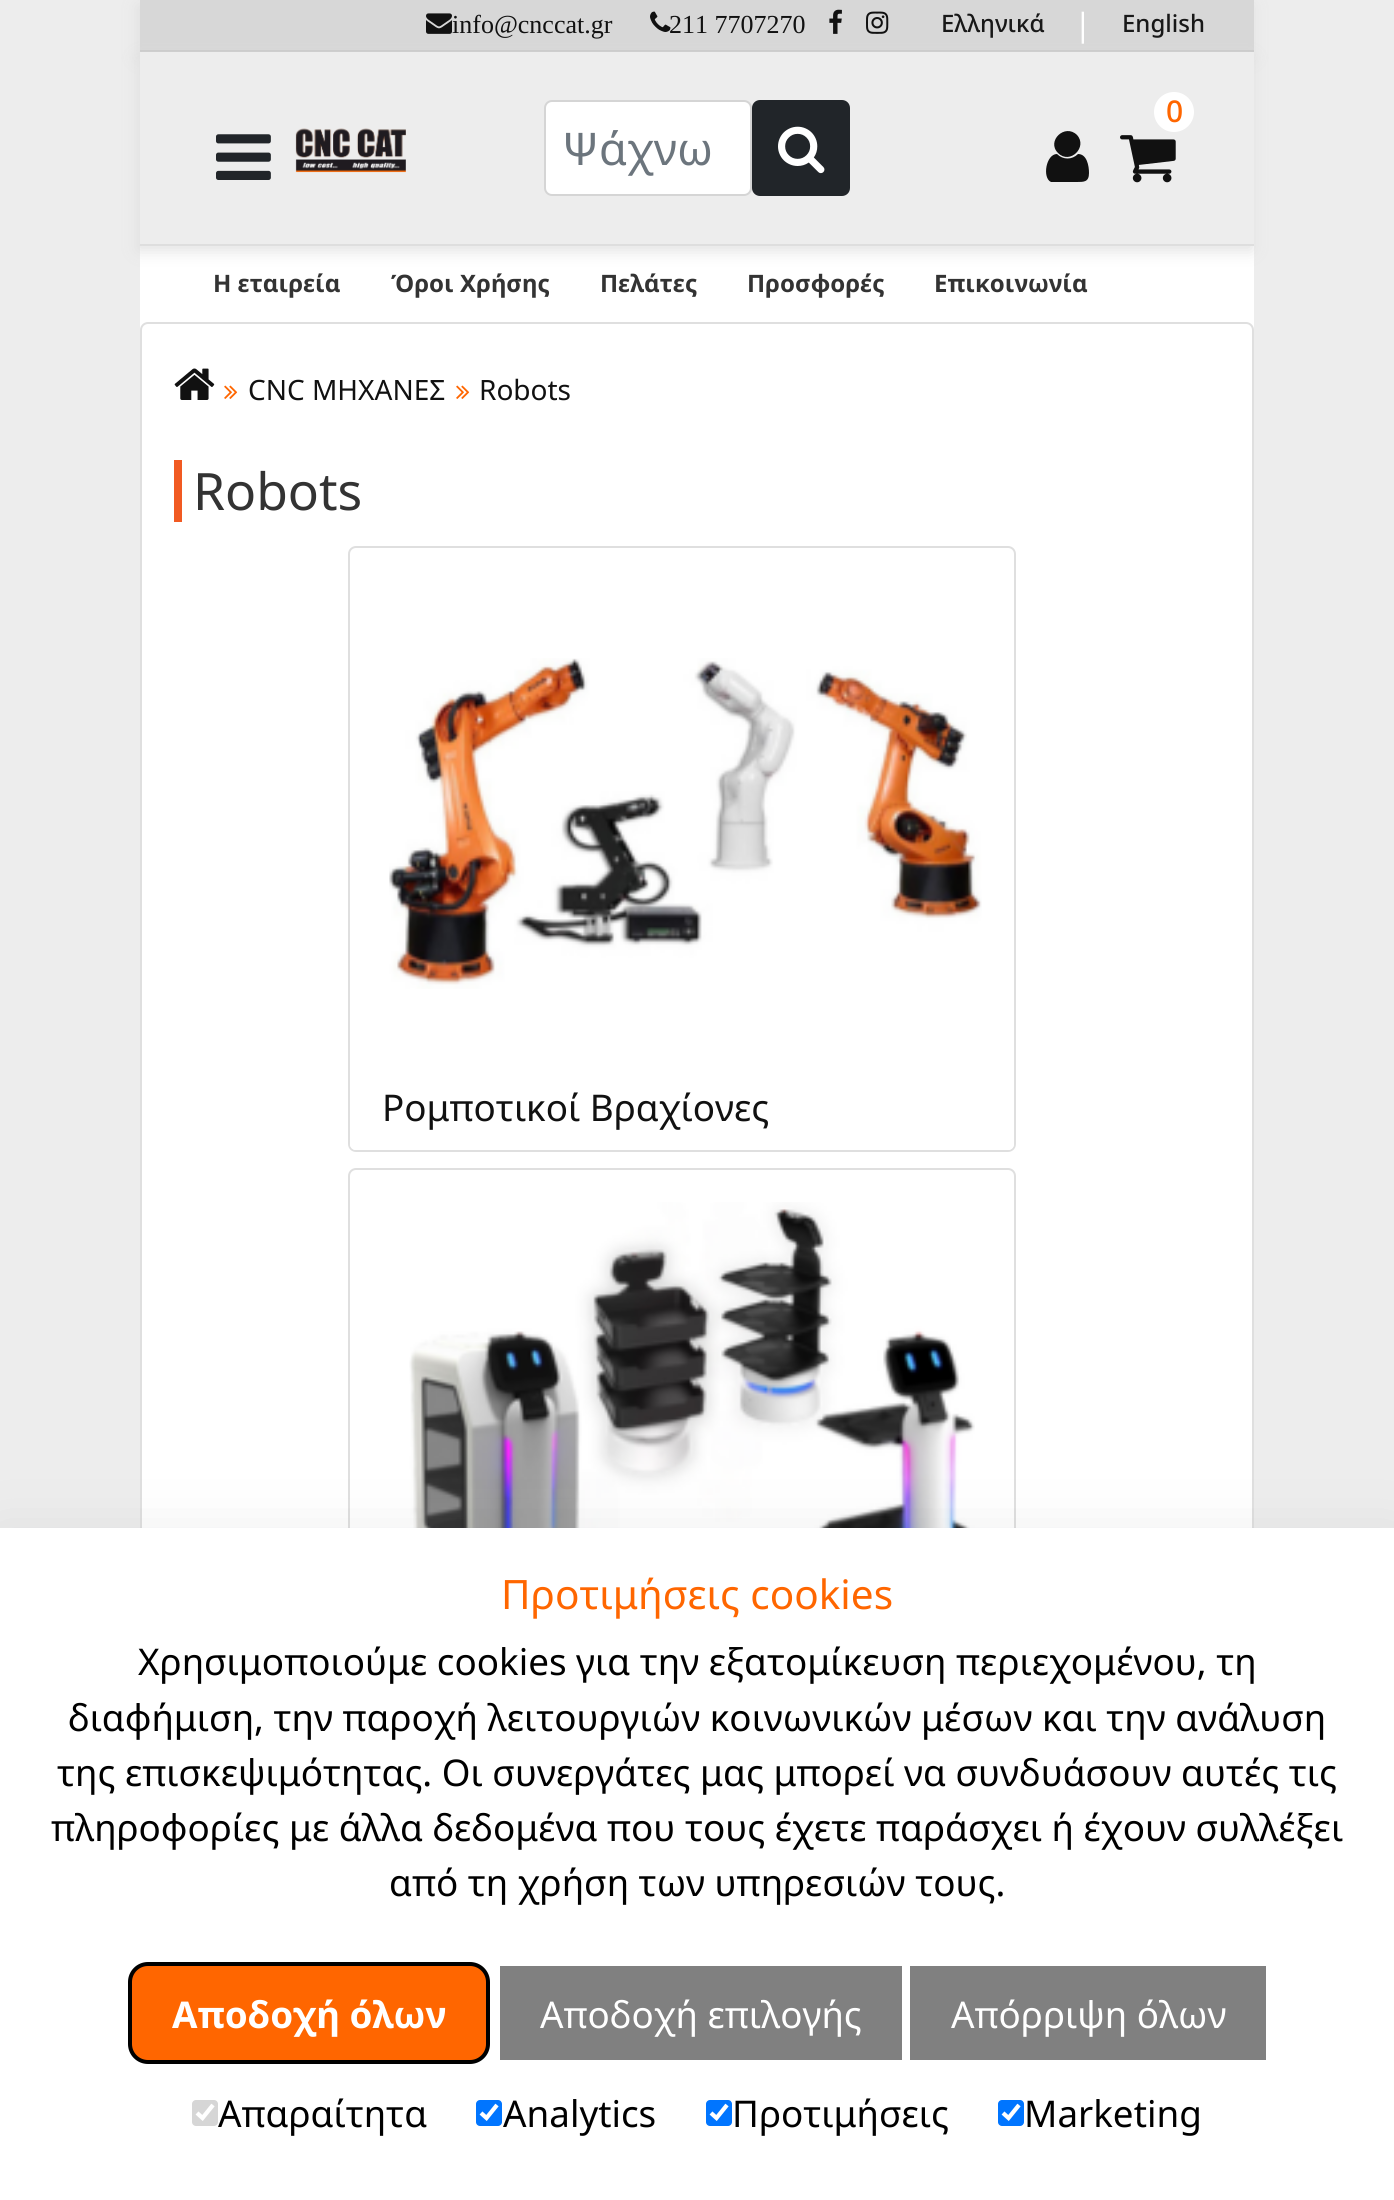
import math
import cairo

surface = cairo.ImageSurface(cairo.FORMAT_RGB24, 1394, 2200)
ctx = cairo.Context(surface)
options = cairo.FontOptions()
options.set_hint_metrics(cairo.HINT_METRICS_OFF)
options.set_hint_style(cairo.HINT_STYLE_NONE)
ctx.set_font_options(options)
ctx.set_miter_limit(4)


def round_rect(x, y, w, h, r):
    ctx.new_sub_path()
    for i, (u, v) in enumerate([(x + w - r, y + h - r), (x + r, y + h - r), (x + r, y + r), (x + w - r, y + r)]):
        ctx.arc(u, v, r, i * math.pi / 2, (i + 1) * math.pi / 2)
    ctx.close_path()


def shadow(x, y, w, h, r, blur, alpha):
    ctx.push_group_with_content(cairo.CONTENT_ALPHA)
    ctx.set_operator(cairo.OPERATOR_SOURCE)
    for i in range(15, -16, -2):
        e = blur * i / 6
        if min(w, h) + 2 * e > 0:
            ctx.set_source_rgba(0, 0, 0, alpha * math.erfc((i - 1) / 8.5) / 2)
            round_rect(x - e, y - e, w + 2 * e, h + 2 * e, max(0, min(r + e + blur * .6, min(w, h) / 2 + e)))
            ctx.fill()
    ctx.mask(ctx.pop_group())


def picture(path, x, y, w, h):
    ctx.save()
    ctx.set_source_surface(cairo.ImageSurface.create_from_png(path), x, y)
    ctx.rectangle(x, y, w, h)
    ctx.fill()
    ctx.restore()


ctx.set_source_rgb(0.929, 0.929, 0.929)
ctx.paint()
ctx.set_source_rgb(0.875, 0.875, 0.875)
shadow(138, 6, 1114, 52, 0, 8, 1)
ctx.set_source_rgb(0.843, 0.843, 0.843)
ctx.rectangle(140, 0, 1114, 50)
ctx.fill()
ctx.set_source_rgb(0.788, 0.788, 0.788)
ctx.rectangle(140, 50, 1114, 2)
ctx.fill()
picture("img1.png", 426, 13, 26, 21)
ctx.select_font_face("Liberation Serif")
ctx.set_font_size(26)
ctx.set_source_rgb(0.067, 0.067, 0.067)
ctx.move_to(452, 33)
ctx.show_text("info@cnccat.gr")
picture("img2.png", 650, 11, 21, 21)
ctx.move_to(669, 33)
ctx.show_text("211 7707270")
picture("img3.png", 829, 9, 13, 25)
picture("img4.png", 866, 11, 23, 23)
ctx.select_font_face("Noto Sans Medium")
ctx.set_font_size(24)
ctx.set_source_rgb(0.094, 0.094, 0.094)
ctx.move_to(941, 32)
ctx.show_text("Ελληνικά")
ctx.select_font_face("Noto Sans")
ctx.set_font_size(32)
ctx.set_source_rgb(1, 1, 1)
ctx.move_to(1074, 36)
ctx.show_text("|")
ctx.select_font_face("Noto Sans Medium")
ctx.set_font_size(24)
ctx.set_source_rgb(0.094, 0.094, 0.094)
ctx.move_to(1122, 32)
ctx.show_text("English")
ctx.set_source_rgb(0.867, 0.867, 0.867)
ctx.rectangle(140, 244, 1114, 2)
ctx.fill()
ctx.set_source_rgb(1, 1, 1)
ctx.rectangle(140, 246, 1114, 1282)
ctx.fill()
ctx.set_source_rgb(0.875, 0.875, 0.875)
shadow(138, 58, 1114, 192, 0, 8, 1)
ctx.set_source_rgb(0.929, 0.929, 0.929)
ctx.rectangle(140, 52, 1114, 192)
ctx.fill()
ctx.set_source_rgb(1, 1, 1)
ctx.arc(1174, 112, 20, 0, 2 * math.pi)
ctx.fill()
ctx.set_font_size(30)
ctx.set_source_rgb(1, 0.4, 0)
ctx.move_to(1166, 122)
ctx.show_text("0")
ctx.set_source_rgb(0.067, 0.067, 0.067)
ctx.new_path()
ctx.move_to(1089, 173)
ctx.curve_to(1089, 182, 1084, 182, 1077, 182)
ctx.line_to(1051, 182)
ctx.curve_to(1042, 178, 1046, 154, 1057, 154)
ctx.curve_to(1063, 160, 1072, 160, 1078, 154)
ctx.curve_to(1087, 154, 1089, 166, 1089, 173)
ctx.close_path()
ctx.move_to(1077, 135)
ctx.curve_to(1088, 147, 1070, 165, 1058, 153)
ctx.curve_to(1046, 141, 1065, 123, 1077, 135)
ctx.close_path()
ctx.fill()
picture("img5.png", 1120, 135, 56, 48)
picture("img6.png", 216, 134, 55, 46)
picture("img7.png", 295, 128, 111, 45)
ctx.set_source_rgb(1, 1, 1)
round_rect(545, 101, 206, 94, 7)
ctx.fill_preserve()
ctx.set_source_rgb(0.835, 0.835, 0.835)
ctx.stroke()
ctx.select_font_face("Noto Sans")
ctx.set_font_size(45)
ctx.set_source_rgb(0.424, 0.459, 0.49)
ctx.move_to(562, 165)
ctx.show_text("Ψάχνω")
ctx.set_source_rgb(0.129, 0.145, 0.161)
round_rect(753, 101, 96, 94, 7)
ctx.fill_preserve()
ctx.stroke()
picture("img8.png", 778, 126, 47, 48)
ctx.select_font_face("Noto Sans", cairo.FONT_SLANT_NORMAL, cairo.FONT_WEIGHT_BOLD)
ctx.set_font_size(24)
ctx.set_source_rgb(0.2, 0.2, 0.2)
ctx.move_to(213, 292)
ctx.show_text("Η εταιρεία")
ctx.move_to(391, 292)
ctx.show_text("Όροι Χρήσης")
ctx.move_to(600, 292)
ctx.show_text("Πελάτες")
ctx.move_to(747, 292)
ctx.show_text("Προσφορές")
ctx.move_to(934, 292)
ctx.show_text("Επικοινωνία")
round_rect(141, 323, 1112, 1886, 7)
ctx.set_source_rgb(0.875, 0.875, 0.875)
ctx.stroke()
picture("img9.png", 174, 368, 41, 32)
picture("img10.png", 224, 385, 14, 14)
ctx.select_font_face("Noto Sans")
ctx.set_font_size(28)
ctx.set_source_rgb(0.067, 0.067, 0.067)
ctx.move_to(248, 400)
ctx.show_text("CNC ΜΗΧΑΝΕΣ")
picture("img10.png", 456, 385, 14, 14)
ctx.move_to(479, 400)
ctx.show_text("Robots")
ctx.set_source_rgb(0.945, 0.353, 0.133)
ctx.rectangle(174, 460, 8, 62)
ctx.fill()
ctx.set_font_size(51.5)
ctx.set_source_rgb(0.2, 0.2, 0.2)
ctx.move_to(193, 510)
ctx.show_text("Robots")
round_rect(349, 547, 666, 604, 7)
ctx.set_source_rgb(0.875, 0.875, 0.875)
ctx.stroke()
picture("img11.png", 389, 658, 593, 331)
ctx.set_source_rgb(1, 1, 1)
ctx.new_path()
ctx.move_to(350, 1062)
ctx.line_to(1014, 1062)
ctx.line_to(1014, 1144)
ctx.curve_to(1014, 1147.5, 1011.5, 1150, 1008, 1150)
ctx.line_to(356, 1150)
ctx.curve_to(352.5, 1150, 350, 1147.5, 350, 1144)
ctx.close_path()
ctx.fill()
ctx.set_font_size(36.8)
ctx.set_source_rgb(0.067, 0.067, 0.067)
ctx.move_to(382, 1121)
ctx.show_text("Ρομποτικοί Βραχίονες")
round_rect(349, 1169, 666, 604, 7)
ctx.set_source_rgb(0.875, 0.875, 0.875)
ctx.stroke()
picture("img12.png", 409, 1202, 566, 326)
ctx.set_source_rgb(0.392, 0.392, 0.435)
shadow(0, 1542, 1394, 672, 0, 29, 0.2)
ctx.set_source_rgb(1, 1, 1)
ctx.rectangle(0, 1528, 1394, 672)
ctx.fill()
ctx.set_font_size(40.5)
ctx.set_source_rgb(1, 0.4, 0)
ctx.move_to(501, 1609)
ctx.show_text("Προτιμήσεις cookies")
ctx.set_font_size(36.8)
ctx.set_source_rgb(0, 0, 0)
ctx.move_to(138, 1675)
ctx.show_text("Χρησιμοποιούμε cookies για την εξατομίκευση περιεχομένου, τη")
ctx.move_to(68, 1731)
ctx.show_text("διαφήμιση, την παροχή λειτουργιών κοινωνικών μέσων και την ανάλυση")
ctx.move_to(57, 1786)
ctx.show_text("της επισκεψιμότητας. Οι συνεργάτες μας μπορεί να συνδυάσουν αυτές τις")
ctx.move_to(51, 1841)
ctx.show_text("πληροφορίες με άλλα δεδομένα που τους έχετε παράσχει ή έχουν συλλέξει")
ctx.move_to(389, 1896)
ctx.show_text("από τη χρήση των υπηρεσιών τους.")
ctx.set_source_rgb(1, 0.4, 0)
round_rect(130, 1964, 358, 98, 18)
ctx.fill_preserve()
ctx.set_source_rgb(0, 0, 0)
ctx.set_line_width(4)
ctx.stroke()
ctx.select_font_face("Noto Sans", cairo.FONT_SLANT_NORMAL, cairo.FONT_WEIGHT_BOLD)
ctx.set_source_rgb(1, 1, 1)
ctx.move_to(172, 2028)
ctx.show_text("Αποδοχή όλων")
ctx.set_source_rgb(0.502, 0.502, 0.502)
ctx.rectangle(500, 1966, 402, 94)
ctx.fill()
ctx.select_font_face("Noto Sans")
ctx.set_source_rgb(1, 1, 1)
ctx.move_to(540, 2028)
ctx.show_text("Αποδοχή επιλογής")
ctx.set_source_rgb(0.502, 0.502, 0.502)
ctx.rectangle(910, 1966, 356, 94)
ctx.fill()
ctx.set_source_rgb(1, 1, 1)
ctx.move_to(951, 2028)
ctx.show_text("Απόρριψη όλων")
ctx.set_source_rgb(0.839, 0.839, 0.839)
round_rect(192, 2100, 26, 26, 4)
ctx.fill()
ctx.new_path()
ctx.move_to(197, 2113)
ctx.line_to(202.5, 2118)
ctx.line_to(213, 2105)
ctx.set_source_rgb(1, 1, 1)
ctx.set_line_width(4.2)
ctx.stroke()
ctx.set_source_rgb(0, 0, 0)
ctx.move_to(218, 2127)
ctx.show_text("Απαραίτητα")
ctx.set_source_rgb(0, 0.459, 1)
round_rect(476, 2100, 26, 26, 4)
ctx.fill()
ctx.new_path()
ctx.move_to(481, 2113)
ctx.line_to(486.5, 2118)
ctx.line_to(497, 2105)
ctx.set_source_rgb(1, 1, 1)
ctx.stroke()
ctx.set_source_rgb(0, 0, 0)
ctx.move_to(503, 2127)
ctx.show_text("Analytics")
ctx.set_source_rgb(0, 0.459, 1)
round_rect(706, 2100, 26, 26, 4)
ctx.fill()
ctx.new_path()
ctx.move_to(711, 2113)
ctx.line_to(716.5, 2118)
ctx.line_to(727, 2105)
ctx.set_source_rgb(1, 1, 1)
ctx.stroke()
ctx.set_source_rgb(0, 0, 0)
ctx.move_to(732, 2127)
ctx.show_text("Προτιμήσεις")
ctx.set_source_rgb(0, 0.459, 1)
round_rect(998, 2100, 26, 26, 4)
ctx.fill()
ctx.new_path()
ctx.move_to(1003, 2113)
ctx.line_to(1008.5, 2118)
ctx.line_to(1019, 2105)
ctx.set_source_rgb(1, 1, 1)
ctx.stroke()
ctx.set_source_rgb(0, 0, 0)
ctx.move_to(1024, 2127)
ctx.show_text("Marketing")
surface.write_to_png("page.png")
